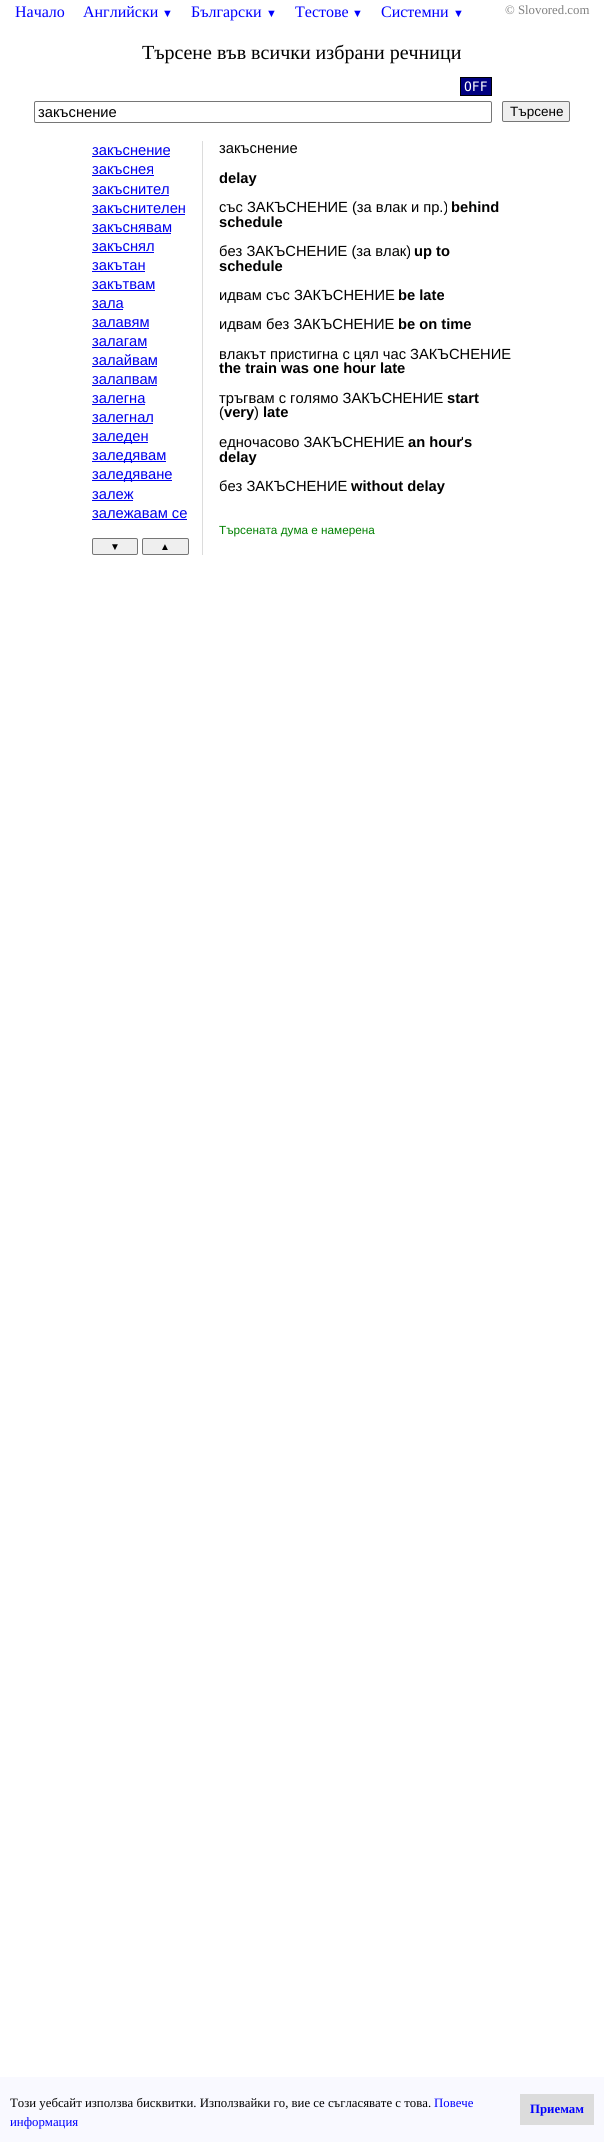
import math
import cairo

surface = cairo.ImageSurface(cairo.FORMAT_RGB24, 604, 2142)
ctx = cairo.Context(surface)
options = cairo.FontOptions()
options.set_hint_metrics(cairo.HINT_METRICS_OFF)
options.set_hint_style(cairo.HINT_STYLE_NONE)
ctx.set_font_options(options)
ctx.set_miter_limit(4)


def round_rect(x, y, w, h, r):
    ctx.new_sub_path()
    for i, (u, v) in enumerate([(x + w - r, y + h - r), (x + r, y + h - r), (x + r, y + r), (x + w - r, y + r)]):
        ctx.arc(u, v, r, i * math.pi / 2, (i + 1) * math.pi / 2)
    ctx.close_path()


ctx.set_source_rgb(1, 1, 1)
ctx.paint()
ctx.select_font_face("Liberation Serif")
ctx.set_font_size(16)
ctx.set_source_rgb(0, 0, 1)
ctx.move_to(15, 17)
ctx.show_text("Начало")
ctx.move_to(83, 17)
ctx.show_text("Английски")
ctx.set_font_size(11)
ctx.move_to(162, 17)
ctx.show_text("▼")
ctx.set_font_size(16)
ctx.move_to(191, 17)
ctx.show_text("Български")
ctx.set_font_size(11)
ctx.move_to(266, 17)
ctx.show_text("▼")
ctx.set_font_size(16)
ctx.move_to(295, 17)
ctx.show_text("Тестове")
ctx.set_font_size(11)
ctx.move_to(352, 17)
ctx.show_text("▼")
ctx.set_font_size(16)
ctx.move_to(381, 17)
ctx.show_text("Системни")
ctx.set_font_size(11)
ctx.move_to(453, 17)
ctx.show_text("▼")
ctx.set_font_size(12.8)
ctx.set_source_rgb(0.502, 0.502, 0.502)
ctx.move_to(505, 14)
ctx.show_text("© Slovored.com")
ctx.set_font_size(20)
ctx.set_source_rgb(0, 0, 0)
ctx.move_to(142, 59)
ctx.show_text("Търсене във всички избрани речници")
ctx.set_source_rgb(0, 0, 0.502)
ctx.rectangle(460.5, 77.5, 31, 18)
ctx.fill_preserve()
ctx.set_source_rgb(0, 0, 0)
ctx.set_line_width(1)
ctx.stroke()
ctx.select_font_face("DejaVu Sans Mono")
ctx.set_font_size(13)
ctx.set_source_rgb(1, 1, 1)
ctx.move_to(464, 91)
ctx.show_text("OFF")
round_rect(34.5, 101.5, 457, 21, 1.5)
ctx.set_source_rgb(0.463, 0.463, 0.463)
ctx.stroke()
ctx.select_font_face("Liberation Sans")
ctx.set_font_size(14.7)
ctx.set_source_rgb(0, 0, 0)
ctx.move_to(38, 117)
ctx.show_text("закъснение")
ctx.set_source_rgb(0.937, 0.937, 0.937)
round_rect(502.5, 101.5, 67, 20, 1.5)
ctx.fill_preserve()
ctx.set_source_rgb(0.463, 0.463, 0.463)
ctx.stroke()
ctx.set_font_size(13.5)
ctx.set_source_rgb(0, 0, 0)
ctx.move_to(510, 116)
ctx.show_text("Търсене")
ctx.set_source_rgb(0.863, 0.863, 0.863)
ctx.rectangle(202, 141, 1, 414)
ctx.fill()
ctx.set_font_size(14.7)
ctx.set_source_rgb(0, 0, 0.933)
ctx.move_to(92, 155)
ctx.show_text("закъснение")
ctx.rectangle(92, 156, 78, 1)
ctx.fill()
ctx.move_to(92, 174)
ctx.show_text("закъснея")
ctx.rectangle(92, 175, 62, 1)
ctx.fill()
ctx.move_to(92, 194)
ctx.show_text("закъснител")
ctx.rectangle(92, 195, 77, 1)
ctx.fill()
ctx.move_to(92, 213)
ctx.show_text("закъснителен")
ctx.rectangle(92, 214, 93, 1)
ctx.fill()
ctx.move_to(92, 232)
ctx.show_text("закъснявам")
ctx.rectangle(92, 233, 79, 1)
ctx.fill()
ctx.move_to(92, 251)
ctx.show_text("закъснял")
ctx.rectangle(92, 252, 62, 1)
ctx.fill()
ctx.move_to(92, 270)
ctx.show_text("закътан")
ctx.rectangle(92, 271, 53, 1)
ctx.fill()
ctx.move_to(92, 289)
ctx.show_text("закътвам")
ctx.rectangle(92, 290, 63, 1)
ctx.fill()
ctx.move_to(92, 308)
ctx.show_text("зала")
ctx.rectangle(92, 309, 31, 1)
ctx.fill()
ctx.move_to(92, 327)
ctx.show_text("залавям")
ctx.rectangle(92, 328, 57, 1)
ctx.fill()
ctx.move_to(92, 346)
ctx.show_text("залагам")
ctx.rectangle(92, 347, 55, 1)
ctx.fill()
ctx.move_to(92, 365)
ctx.show_text("залайвам")
ctx.rectangle(92, 366, 65, 1)
ctx.fill()
ctx.move_to(92, 384)
ctx.show_text("залапвам")
ctx.rectangle(92, 385, 65, 1)
ctx.fill()
ctx.move_to(92, 403)
ctx.show_text("залегна")
ctx.rectangle(92, 404, 53, 1)
ctx.fill()
ctx.move_to(92, 422)
ctx.show_text("залегнал")
ctx.rectangle(92, 423, 61, 1)
ctx.fill()
ctx.rectangle(92, 442, 56, 1)
ctx.fill()
ctx.move_to(92, 441)
ctx.show_text("заледен")
ctx.rectangle(92, 461, 74, 1)
ctx.fill()
ctx.move_to(92, 460)
ctx.show_text("заледявам")
ctx.rectangle(92, 480, 80, 1)
ctx.fill()
ctx.move_to(92, 479)
ctx.show_text("заледяване")
ctx.move_to(92, 499)
ctx.show_text("залеж")
ctx.rectangle(92, 500, 41, 1)
ctx.fill()
ctx.move_to(92, 518)
ctx.show_text("залежавам се")
ctx.rectangle(92, 519, 95, 1)
ctx.fill()
ctx.set_source_rgb(0.937, 0.937, 0.937)
round_rect(92.5, 538.5, 45, 16, 1.5)
ctx.fill_preserve()
ctx.set_source_rgb(0.463, 0.463, 0.463)
ctx.stroke()
ctx.set_font_size(10)
ctx.set_source_rgb(0, 0, 0)
ctx.move_to(110, 550)
ctx.show_text("▼")
ctx.set_source_rgb(0.937, 0.937, 0.937)
round_rect(142.5, 538.5, 46, 16, 1.5)
ctx.fill_preserve()
ctx.set_source_rgb(0.463, 0.463, 0.463)
ctx.stroke()
ctx.set_source_rgb(0, 0, 0)
ctx.move_to(160, 550)
ctx.show_text("▲")
ctx.set_font_size(14.7)
ctx.move_to(219, 153)
ctx.show_text("закъснение")
ctx.select_font_face("Liberation Sans", cairo.FONT_SLANT_NORMAL, cairo.FONT_WEIGHT_BOLD)
ctx.move_to(219, 183)
ctx.show_text("delay")
ctx.select_font_face("Liberation Sans")
ctx.move_to(219, 212)
ctx.show_text("със ЗАКЪСНЕНИЕ (за влак и пр.)")
ctx.select_font_face("Liberation Sans", cairo.FONT_SLANT_NORMAL, cairo.FONT_WEIGHT_BOLD)
ctx.move_to(451, 212)
ctx.show_text("behind")
ctx.move_to(219, 227)
ctx.show_text("schedule")
ctx.select_font_face("Liberation Sans")
ctx.move_to(219, 256)
ctx.show_text("без ЗАКЪСНЕНИЕ (за влак)")
ctx.select_font_face("Liberation Sans", cairo.FONT_SLANT_NORMAL, cairo.FONT_WEIGHT_BOLD)
ctx.move_to(414, 256)
ctx.show_text("up to")
ctx.move_to(219, 271)
ctx.show_text("schedule")
ctx.select_font_face("Liberation Sans")
ctx.move_to(219, 300)
ctx.show_text("идвам със ЗАКЪСНЕНИЕ")
ctx.select_font_face("Liberation Sans", cairo.FONT_SLANT_NORMAL, cairo.FONT_WEIGHT_BOLD)
ctx.move_to(398, 300)
ctx.show_text("be late")
ctx.select_font_face("Liberation Sans")
ctx.move_to(219, 329)
ctx.show_text("идвам без ЗАКЪСНЕНИЕ")
ctx.select_font_face("Liberation Sans", cairo.FONT_SLANT_NORMAL, cairo.FONT_WEIGHT_BOLD)
ctx.move_to(398, 329)
ctx.show_text("be on time")
ctx.select_font_face("Liberation Sans")
ctx.move_to(219, 359)
ctx.show_text("влакът пристигна с цял час ЗАКЪСНЕНИЕ")
ctx.select_font_face("Liberation Sans", cairo.FONT_SLANT_NORMAL, cairo.FONT_WEIGHT_BOLD)
ctx.move_to(219, 373)
ctx.show_text("the train was one hour late")
ctx.select_font_face("Liberation Sans")
ctx.move_to(219, 403)
ctx.show_text("тръгвам с голямо ЗАКЪСНЕНИЕ")
ctx.select_font_face("Liberation Sans", cairo.FONT_SLANT_NORMAL, cairo.FONT_WEIGHT_BOLD)
ctx.move_to(447, 403)
ctx.show_text("start")
ctx.select_font_face("Liberation Sans")
ctx.move_to(219, 417)
ctx.show_text("(")
ctx.select_font_face("Liberation Sans", cairo.FONT_SLANT_NORMAL, cairo.FONT_WEIGHT_BOLD)
ctx.move_to(224, 417)
ctx.show_text("very")
ctx.select_font_face("Liberation Sans")
ctx.move_to(254, 417)
ctx.show_text(")")
ctx.select_font_face("Liberation Sans", cairo.FONT_SLANT_NORMAL, cairo.FONT_WEIGHT_BOLD)
ctx.move_to(263, 417)
ctx.show_text("late")
ctx.select_font_face("Liberation Sans")
ctx.move_to(219, 447)
ctx.show_text("едночасово ЗАКЪСНЕНИЕ")
ctx.select_font_face("Liberation Sans", cairo.FONT_SLANT_NORMAL, cairo.FONT_WEIGHT_BOLD)
ctx.move_to(408, 447)
ctx.show_text("an hour")
ctx.select_font_face("Liberation Sans")
ctx.move_to(461, 447)
ctx.show_text("'")
ctx.select_font_face("Liberation Sans", cairo.FONT_SLANT_NORMAL, cairo.FONT_WEIGHT_BOLD)
ctx.move_to(464, 447)
ctx.show_text("s")
ctx.move_to(219, 462)
ctx.show_text("delay")
ctx.select_font_face("Liberation Sans")
ctx.move_to(219, 491)
ctx.show_text("без ЗАКЪСНЕНИЕ")
ctx.select_font_face("Liberation Sans", cairo.FONT_SLANT_NORMAL, cairo.FONT_WEIGHT_BOLD)
ctx.move_to(351, 491)
ctx.show_text("without delay")
ctx.select_font_face("Liberation Sans")
ctx.set_font_size(11.75)
ctx.set_source_rgb(0, 0.502, 0)
ctx.move_to(219, 534)
ctx.show_text("Търсената дума е намерена")
ctx.set_source_rgb(0.973, 0.973, 1)
ctx.rectangle(0, 2077, 604, 65)
ctx.fill()
ctx.select_font_face("Liberation Serif")
ctx.set_font_size(12.8)
ctx.set_source_rgb(0, 0, 0)
ctx.move_to(10, 2107)
ctx.show_text("Този уебсайт използва бисквитки. Използвайки го, вие се съгласявате с това.")
ctx.set_source_rgb(0, 0, 1)
ctx.move_to(434, 2107)
ctx.show_text("Повече")
ctx.move_to(10, 2126)
ctx.show_text("информация")
ctx.set_source_rgb(0.863, 0.863, 0.863)
ctx.rectangle(520, 2094, 74, 31)
ctx.fill()
ctx.select_font_face("Liberation Serif", cairo.FONT_SLANT_NORMAL, cairo.FONT_WEIGHT_BOLD)
ctx.set_source_rgb(0, 0, 1)
ctx.move_to(530, 2113)
ctx.show_text("Приемам")
surface.write_to_png("page.png")
